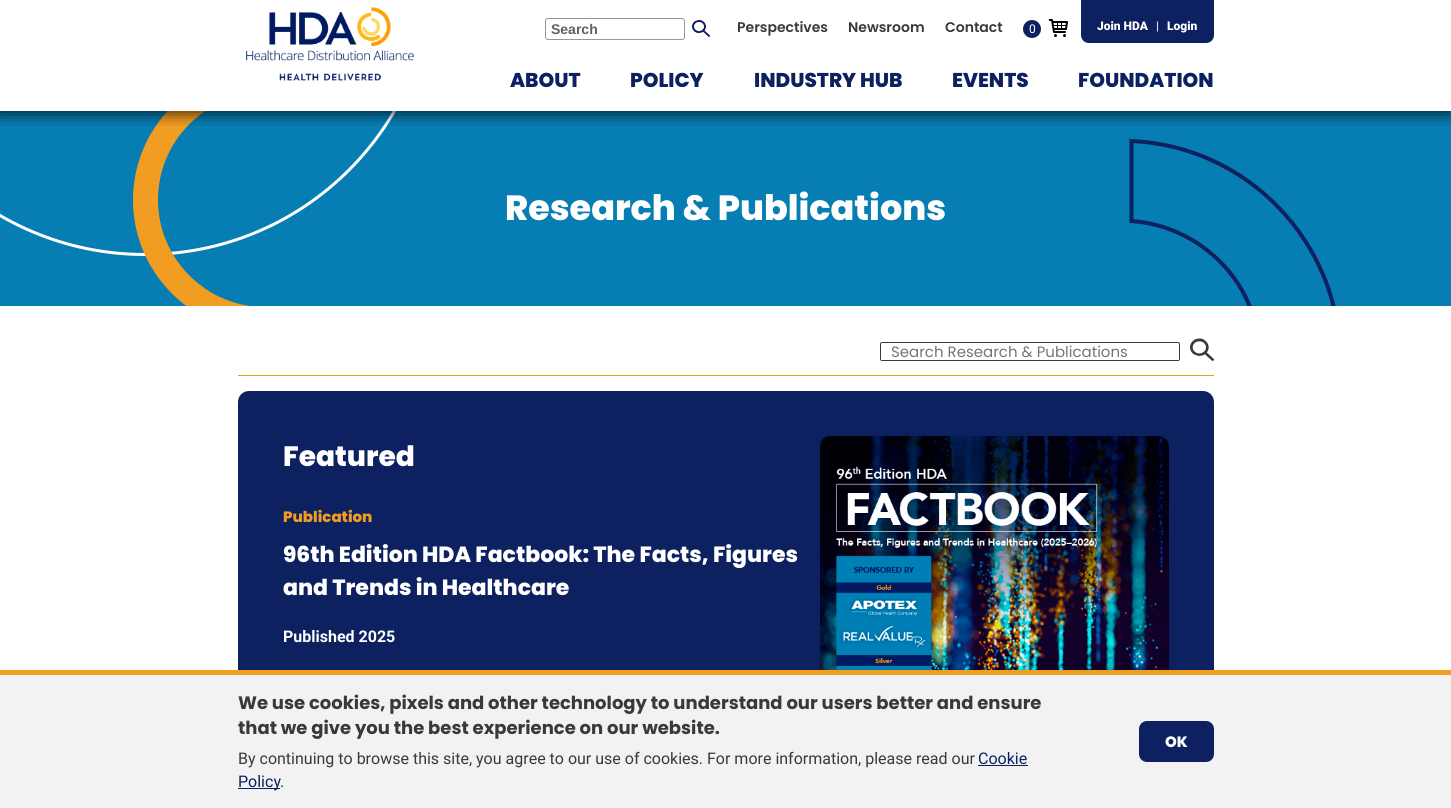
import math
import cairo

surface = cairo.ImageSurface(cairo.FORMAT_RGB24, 1451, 808)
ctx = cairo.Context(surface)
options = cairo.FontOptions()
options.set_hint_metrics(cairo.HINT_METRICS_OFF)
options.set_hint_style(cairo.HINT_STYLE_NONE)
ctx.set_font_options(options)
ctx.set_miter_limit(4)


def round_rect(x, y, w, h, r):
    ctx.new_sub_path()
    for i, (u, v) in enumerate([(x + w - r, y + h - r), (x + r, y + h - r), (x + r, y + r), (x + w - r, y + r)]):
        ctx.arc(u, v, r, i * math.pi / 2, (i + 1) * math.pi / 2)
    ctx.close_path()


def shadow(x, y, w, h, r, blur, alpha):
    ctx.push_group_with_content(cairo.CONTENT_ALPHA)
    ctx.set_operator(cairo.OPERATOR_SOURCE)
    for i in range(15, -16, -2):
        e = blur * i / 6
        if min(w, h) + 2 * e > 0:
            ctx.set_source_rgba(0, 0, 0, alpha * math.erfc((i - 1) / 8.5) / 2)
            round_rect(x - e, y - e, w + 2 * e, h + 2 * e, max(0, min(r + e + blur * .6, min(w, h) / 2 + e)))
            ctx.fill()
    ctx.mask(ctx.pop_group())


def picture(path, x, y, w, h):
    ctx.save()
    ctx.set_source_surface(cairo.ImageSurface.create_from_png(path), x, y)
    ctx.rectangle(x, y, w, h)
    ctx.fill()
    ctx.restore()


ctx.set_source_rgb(1, 1, 1)
ctx.paint()
ctx.set_source_rgb(0.024, 0.49, 0.702)
ctx.rectangle(0, 111, 1451, 195)
ctx.fill()
ctx.save()
ctx.rectangle(0, 111, 1451, 195)
ctx.clip()
round_rect(-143.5, -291.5, 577, 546, 288.5)
ctx.set_source_rgb(1, 1, 1)
ctx.set_line_width(3)
ctx.stroke()
ctx.restore()
ctx.save()
ctx.rectangle(133, 111, 117, 195)
ctx.clip()
ctx.set_source_rgb(0.945, 0.616, 0.129)
ctx.set_fill_rule(cairo.FILL_RULE_EVEN_ODD)
ctx.new_path()
ctx.move_to(263, 307)
ctx.curve_to(205, 306, 158, 258, 158, 200)
ctx.curve_to(158, 141, 205, 94, 263, 93)
ctx.line_to(263, 68)
ctx.curve_to(191, 69, 133, 128, 133, 200)
ctx.curve_to(133, 272, 191, 331, 263, 332)
ctx.close_path()
ctx.fill()
ctx.restore()
ctx.save()
ctx.rectangle(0, 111, 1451, 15)
ctx.clip()
ctx.set_source_rgb(0, 0, 0)
shadow(-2, 1, 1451, 111, 0, 8, 0.5)
shadow(-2, 1, 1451, 111, 0, 8, 0.5)
ctx.restore()
picture("img1.png", 246, 7, 168, 74)
round_rect(545.5, 18.5, 139, 21, 2.5)
ctx.set_source_rgb(0.592, 0.592, 0.592)
ctx.set_line_width(1)
ctx.stroke()
ctx.select_font_face("Liberation Sans", cairo.FONT_SLANT_NORMAL, cairo.FONT_WEIGHT_BOLD)
ctx.set_font_size(14)
ctx.set_source_rgb(0.38, 0.38, 0.38)
ctx.move_to(551, 34)
ctx.show_text("Search")
picture("img2.png", 692, 20, 18, 17)
ctx.select_font_face("Poppins SemiBold")
ctx.set_source_rgb(0.224, 0.224, 0.224)
ctx.move_to(737, 32)
ctx.show_text("Perspectives")
ctx.move_to(848, 32)
ctx.show_text("Newsroom")
ctx.move_to(945, 32)
ctx.show_text("Contact")
ctx.set_source_rgb(0.051, 0.129, 0.376)
ctx.new_path()
ctx.arc(1032, 29, 9, 0, 2 * math.pi)
ctx.fill()
ctx.select_font_face("Roboto")
ctx.set_font_size(12)
ctx.set_source_rgb(1, 1, 1)
ctx.move_to(1029, 33)
ctx.show_text("0")
picture("img3.png", 1048, 19, 20, 18)
ctx.set_source_rgb(0.051, 0.129, 0.376)
ctx.new_path()
ctx.move_to(1081, -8)
ctx.line_to(1214, -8)
ctx.line_to(1214, 35)
ctx.curve_to(1214, 39.5, 1210.5, 43, 1206, 43)
ctx.line_to(1089, 43)
ctx.curve_to(1084.5, 43, 1081, 39.5, 1081, 35)
ctx.close_path()
ctx.fill()
ctx.select_font_face("Roboto Black")
ctx.set_source_rgb(1, 1, 1)
ctx.move_to(1097, 30)
ctx.show_text("Join HDA")
ctx.select_font_face("Roboto")
ctx.move_to(1156, 30)
ctx.show_text("|")
ctx.select_font_face("Roboto Black")
ctx.move_to(1167, 30)
ctx.show_text("Login")
ctx.select_font_face("Poppins ExtraBold")
ctx.set_font_size(20)
ctx.set_source_rgb(0.051, 0.129, 0.376)
ctx.move_to(510, 87)
ctx.show_text("ABOUT")
ctx.move_to(630, 87)
ctx.show_text("POLICY")
ctx.move_to(754, 87)
ctx.show_text("INDUSTRY HUB")
ctx.move_to(952, 87)
ctx.show_text("EVENTS")
ctx.move_to(1078, 87)
ctx.show_text("FOUNDATION")
ctx.set_font_size(35)
ctx.set_source_rgb(1, 1, 1)
ctx.move_to(505, 220)
ctx.show_text("Research & Publications")
ctx.save()
ctx.rectangle(1129, 138, 207, 168)
ctx.clip()
ctx.new_path()
ctx.move_to(1123, 575)
ctx.curve_to(1242.5, 575, 1340, 478, 1340, 358.5)
ctx.curve_to(1340, 242, 1247, 146, 1131.5, 141)
ctx.line_to(1131.5, 221)
ctx.curve_to(1175, 224, 1215, 248, 1238.5, 284.5)
ctx.curve_to(1257.5, 314.5, 1264.5, 351, 1257, 385.5)
ctx.curve_to(1252, 412, 1238.5, 436, 1219.5, 455)
ctx.curve_to(1134.5, 540, 990.5, 481, 986, 363.5)
ctx.line_to(906, 363)
ctx.curve_to(909, 480.5, 1005.5, 575, 1123, 575)
ctx.close_path()
ctx.set_source_rgb(0.051, 0.129, 0.376)
ctx.set_line_width(4)
ctx.stroke()
ctx.restore()
ctx.set_source_rgb(0.945, 0.616, 0.129)
ctx.rectangle(238, 375, 976, 1)
ctx.fill()
round_rect(880.5, 342.5, 299, 18, 1.5)
ctx.set_source_rgb(0.224, 0.224, 0.224)
ctx.stroke()
ctx.select_font_face("Poppins")
ctx.set_font_size(15)
ctx.set_source_rgb(0.459, 0.459, 0.459)
ctx.move_to(891, 357)
ctx.show_text("Search Research & Publications")
picture("img4.png", 1190, 338, 24, 23)
ctx.set_source_rgb(0.051, 0.129, 0.376)
round_rect(238, 391, 976, 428, 11)
ctx.fill()
ctx.select_font_face("Poppins ExtraBold")
ctx.set_font_size(28)
ctx.set_source_rgb(1, 1, 1)
ctx.move_to(283, 466)
ctx.show_text("Featured")
ctx.set_font_size(15)
ctx.set_source_rgb(0.945, 0.616, 0.129)
ctx.move_to(283, 522)
ctx.show_text("Publication")
ctx.set_font_size(22)
ctx.set_source_rgb(1, 1, 1)
ctx.move_to(283, 562)
ctx.show_text("96th Edition HDA Factbook: The Facts, Figures")
ctx.move_to(283, 595)
ctx.show_text("and Trends in Healthcare")
ctx.select_font_face("Roboto", cairo.FONT_SLANT_NORMAL, cairo.FONT_WEIGHT_BOLD)
ctx.set_font_size(16)
ctx.move_to(283, 642)
ctx.show_text("Published 2025")
picture("img5.png", 820, 436, 349, 234)
ctx.set_source_rgb(0.949, 0.949, 0.949)
ctx.rectangle(0, 675, 1451, 133)
ctx.fill()
ctx.set_source_rgb(0.945, 0.616, 0.129)
ctx.rectangle(0, 670, 1451, 5)
ctx.fill()
ctx.select_font_face("Poppins", cairo.FONT_SLANT_NORMAL, cairo.FONT_WEIGHT_BOLD)
ctx.set_font_size(18)
ctx.set_source_rgb(0.224, 0.224, 0.224)
ctx.move_to(238, 709)
ctx.show_text("We use cookies, pixels and other technology to understand our users better and ensure")
ctx.move_to(238, 734)
ctx.show_text("that we give you the best experience on our website.")
ctx.select_font_face("Roboto")
ctx.set_font_size(16)
ctx.move_to(238, 764)
ctx.show_text("By continuing to browse this site, you agree to our use of cookies. For more information, please read our")
ctx.set_source_rgb(0.051, 0.129, 0.376)
ctx.move_to(978, 764)
ctx.show_text("Cookie")
ctx.rectangle(978, 765, 50, 1)
ctx.fill()
ctx.rectangle(238, 788, 42, 1)
ctx.fill()
ctx.move_to(238, 787)
ctx.show_text("Policy")
ctx.set_source_rgb(0.224, 0.224, 0.224)
ctx.move_to(280, 787)
ctx.show_text(".")
ctx.set_source_rgb(0.051, 0.129, 0.376)
round_rect(1140, 722, 73, 39, 7)
ctx.fill_preserve()
ctx.set_line_width(2)
ctx.stroke()
ctx.select_font_face("Poppins ExtraBold")
ctx.set_font_size(15)
ctx.set_source_rgb(1, 1, 1)
ctx.move_to(1165, 747)
ctx.show_text("OK")
surface.write_to_png("page.png")
